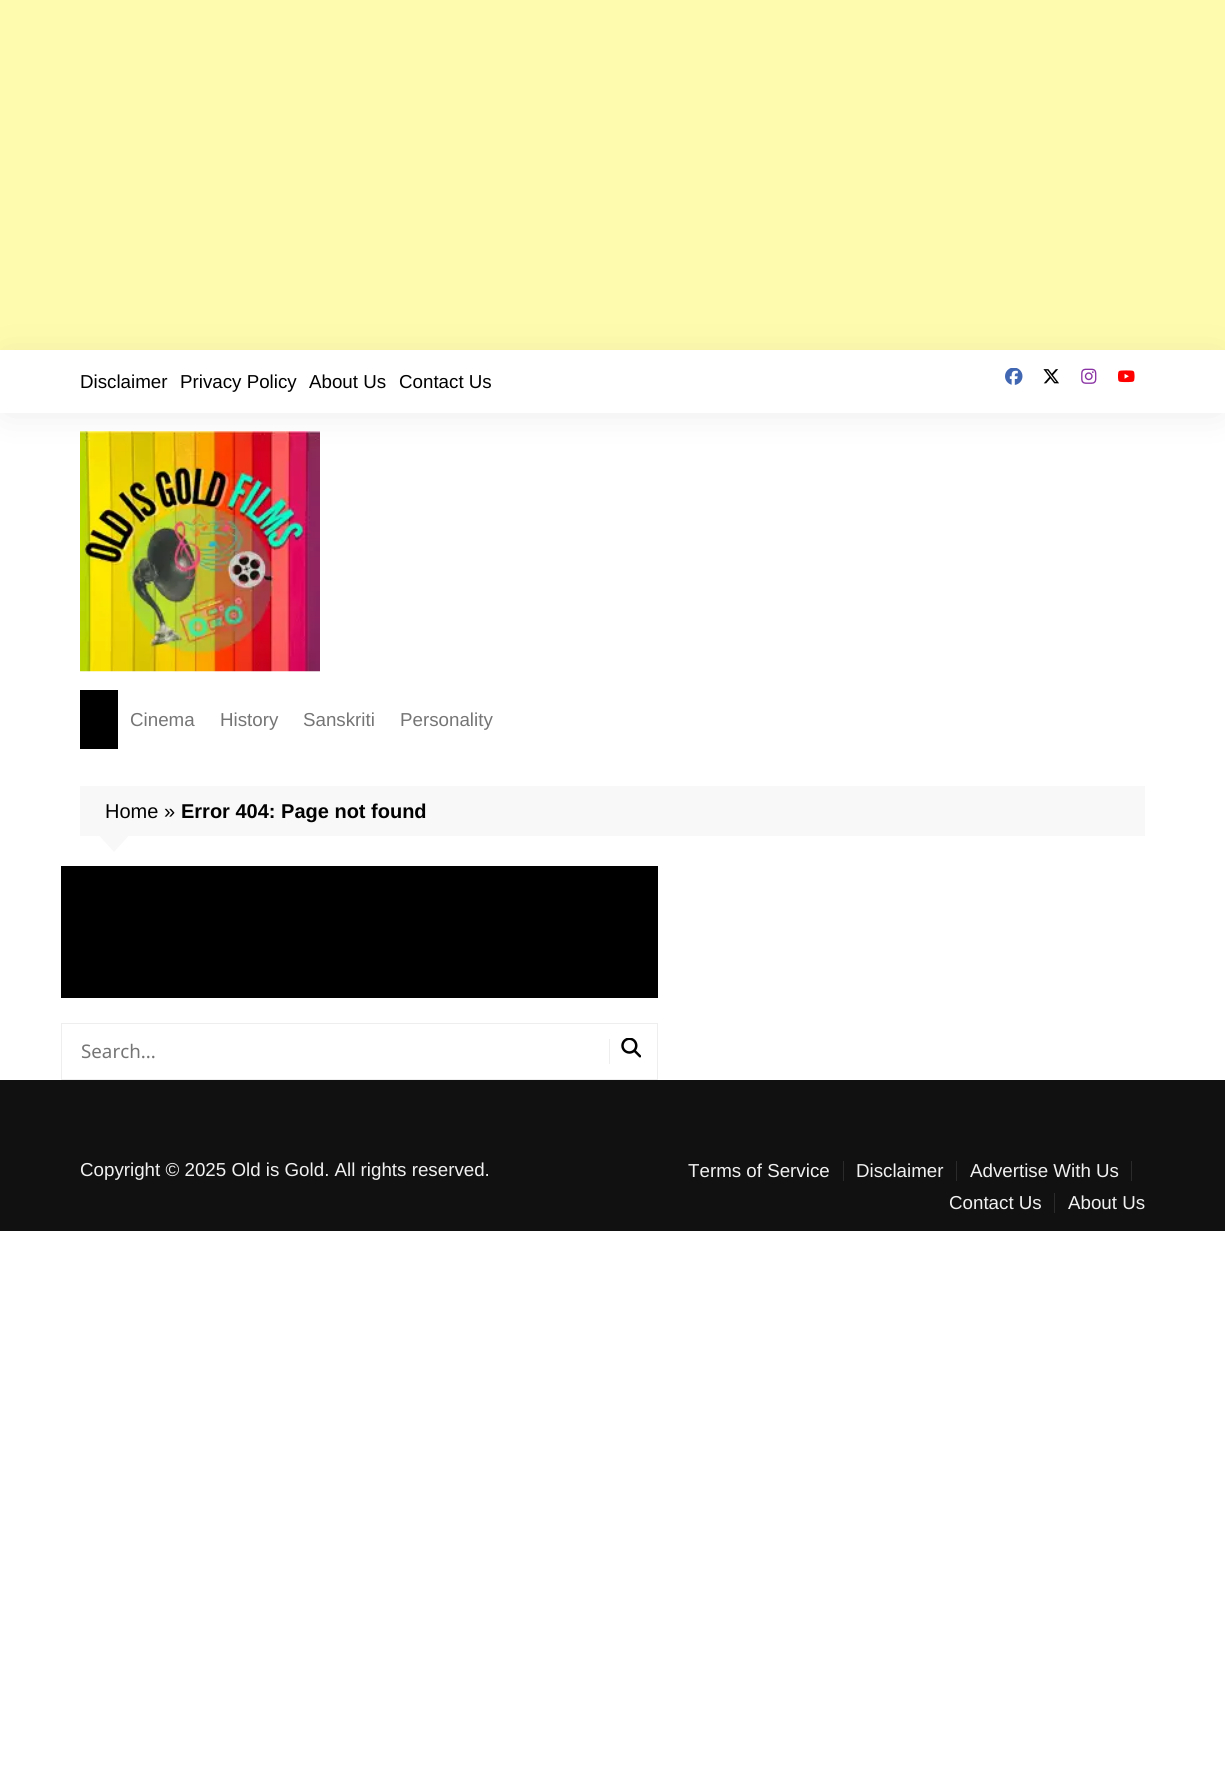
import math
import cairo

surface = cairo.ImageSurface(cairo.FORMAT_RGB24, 1225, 1792)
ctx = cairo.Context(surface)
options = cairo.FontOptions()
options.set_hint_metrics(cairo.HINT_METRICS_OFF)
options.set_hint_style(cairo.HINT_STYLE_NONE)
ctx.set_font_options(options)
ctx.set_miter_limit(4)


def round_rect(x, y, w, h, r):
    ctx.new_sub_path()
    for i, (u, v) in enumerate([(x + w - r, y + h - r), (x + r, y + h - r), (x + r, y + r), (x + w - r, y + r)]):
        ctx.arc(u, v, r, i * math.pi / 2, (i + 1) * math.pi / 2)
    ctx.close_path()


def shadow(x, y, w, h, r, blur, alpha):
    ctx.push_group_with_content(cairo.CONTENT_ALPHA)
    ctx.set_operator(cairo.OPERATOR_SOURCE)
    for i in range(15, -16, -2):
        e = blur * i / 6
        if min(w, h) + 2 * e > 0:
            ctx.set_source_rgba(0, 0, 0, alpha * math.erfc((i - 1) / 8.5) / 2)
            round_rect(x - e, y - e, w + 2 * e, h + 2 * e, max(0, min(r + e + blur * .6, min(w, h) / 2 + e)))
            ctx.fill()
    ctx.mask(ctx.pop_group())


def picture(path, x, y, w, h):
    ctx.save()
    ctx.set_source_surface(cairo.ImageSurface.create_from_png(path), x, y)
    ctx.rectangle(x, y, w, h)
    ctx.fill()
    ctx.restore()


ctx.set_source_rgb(1, 1, 1)
ctx.paint()
ctx.set_source_rgb(1, 0.984, 0.682)
ctx.rectangle(0, 0, 1225, 350)
ctx.fill()
ctx.set_source_rgb(0, 0, 0)
shadow(6, 359, 1213, 50, 0, 19, 0.1)
ctx.set_source_rgb(1, 1, 1)
ctx.rectangle(0, 350, 1225, 63)
ctx.fill()
ctx.select_font_face("Liberation Sans")
ctx.set_font_size(18.75)
ctx.set_source_rgb(0.004, 0.004, 0.004)
ctx.move_to(80, 388)
ctx.show_text("Disclaimer")
ctx.move_to(180, 388)
ctx.show_text("Privacy Policy")
ctx.move_to(309, 388)
ctx.show_text("About Us")
ctx.move_to(399, 388)
ctx.show_text("Contact Us")
picture("img1.png", 1005, 368, 18, 17)
picture("img2.png", 1043, 369, 16, 15)
picture("img3.png", 1081, 368, 16, 16)
picture("img4.png", 1118, 370, 17, 13)
picture("img5.png", 80, 431, 240, 241)
ctx.set_source_rgb(0, 0, 0)
ctx.rectangle(80, 690, 38, 59)
ctx.fill()
ctx.set_source_rgb(0.459, 0.459, 0.459)
ctx.move_to(130, 726)
ctx.show_text("Cinema")
ctx.move_to(220, 726)
ctx.show_text("History")
ctx.move_to(303, 726)
ctx.show_text("Sanskriti")
ctx.move_to(400, 726)
ctx.show_text("Personality")
ctx.set_source_rgb(0.969, 0.969, 0.969)
ctx.rectangle(80, 786, 1065, 50)
ctx.fill()
ctx.set_font_size(20)
ctx.set_source_rgb(0.004, 0.004, 0.004)
ctx.move_to(105, 818)
ctx.show_text("Home »")
ctx.select_font_face("Liberation Sans", cairo.FONT_SLANT_NORMAL, cairo.FONT_WEIGHT_BOLD)
ctx.move_to(181, 818)
ctx.show_text("Error 404: Page not found")
ctx.set_source_rgb(0.969, 0.969, 0.969)
ctx.new_path()
ctx.move_to(99, 835.5)
ctx.line_to(129, 835.5)
ctx.line_to(114, 852)
ctx.close_path()
ctx.fill()
ctx.set_source_rgb(0, 0, 0)
ctx.rectangle(61, 866, 597, 132)
ctx.fill()
ctx.rectangle(61.5, 1023.5, 596, 56)
ctx.set_source_rgb(0.933, 0.933, 0.933)
ctx.set_line_width(1)
ctx.stroke()
ctx.select_font_face("Noto Sans")
ctx.set_font_size(18.75)
ctx.set_source_rgb(0.459, 0.459, 0.459)
ctx.move_to(81, 1058)
ctx.show_text("Search...")
ctx.set_source_rgb(0.933, 0.933, 0.933)
ctx.rectangle(609, 1039, 1, 25)
ctx.fill()
picture("img6.png", 621, 1038, 20, 20)
ctx.set_source_rgb(0.067, 0.067, 0.067)
ctx.rectangle(0, 1080, 1225, 151)
ctx.fill()
ctx.select_font_face("Liberation Sans")
ctx.set_source_rgb(0.945, 0.945, 0.945)
ctx.move_to(80, 1176)
ctx.show_text("Copyright © 2025 Old is Gold. All rights reserved.")
ctx.set_source_rgb(0.169, 0.169, 0.169)
ctx.rectangle(843, 1161, 1, 20)
ctx.fill()
ctx.set_source_rgb(0.945, 0.945, 0.945)
ctx.move_to(688, 1177)
ctx.show_text("Terms of Service")
ctx.set_source_rgb(0.169, 0.169, 0.169)
ctx.rectangle(956, 1161, 1, 20)
ctx.fill()
ctx.set_source_rgb(0.945, 0.945, 0.945)
ctx.move_to(856, 1177)
ctx.show_text("Disclaimer")
ctx.set_source_rgb(0.169, 0.169, 0.169)
ctx.rectangle(1131, 1161, 1, 20)
ctx.fill()
ctx.set_source_rgb(0.945, 0.945, 0.945)
ctx.move_to(970, 1177)
ctx.show_text("Advertise With Us")
ctx.set_source_rgb(0.169, 0.169, 0.169)
ctx.rectangle(1054, 1193, 1, 20)
ctx.fill()
ctx.set_source_rgb(0.945, 0.945, 0.945)
ctx.move_to(949, 1209)
ctx.show_text("Contact Us")
ctx.move_to(1068, 1209)
ctx.show_text("About Us")
surface.write_to_png("page.png")
